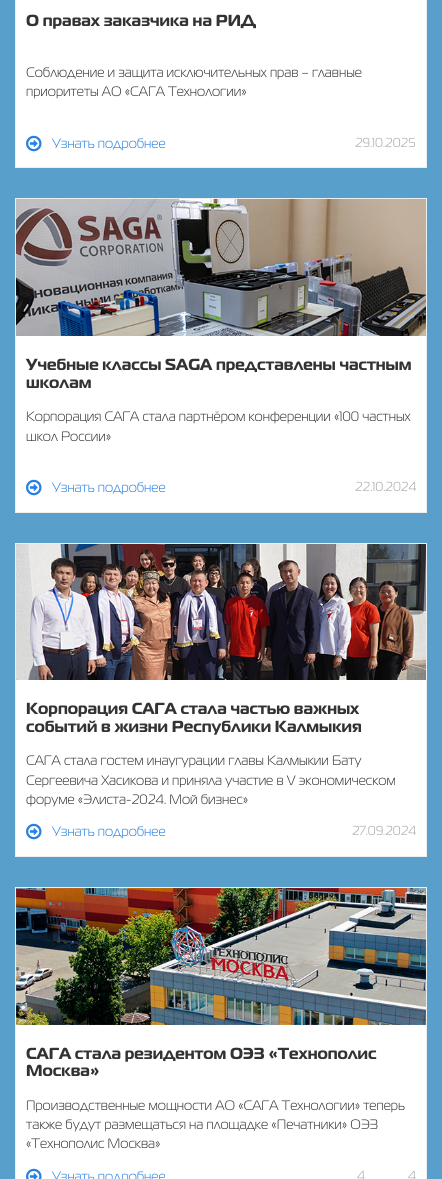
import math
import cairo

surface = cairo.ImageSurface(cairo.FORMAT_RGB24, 442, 1179)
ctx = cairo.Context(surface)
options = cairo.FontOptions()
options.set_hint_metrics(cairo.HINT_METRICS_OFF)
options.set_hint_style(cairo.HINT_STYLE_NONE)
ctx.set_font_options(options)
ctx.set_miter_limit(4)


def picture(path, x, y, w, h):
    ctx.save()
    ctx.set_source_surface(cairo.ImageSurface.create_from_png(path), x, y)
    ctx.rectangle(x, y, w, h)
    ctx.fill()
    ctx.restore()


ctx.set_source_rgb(0.345, 0.624, 0.796)
ctx.paint()
ctx.set_source_rgb(1, 1, 1)
ctx.rectangle(15.5, -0.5, 411, 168)
ctx.fill_preserve()
ctx.set_source_rgb(0.933, 0.933, 0.933)
ctx.set_line_width(1)
ctx.stroke()
ctx.select_font_face("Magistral", cairo.FONT_SLANT_NORMAL, cairo.FONT_WEIGHT_BOLD)
ctx.set_font_size(16)
ctx.set_source_rgb(0.2, 0.2, 0.2)
ctx.move_to(26, 26)
ctx.show_text("О правах заказчика на РИД")
ctx.select_font_face("Magistral Light")
ctx.set_font_size(13.6)
ctx.move_to(26, 77)
ctx.show_text("Соблюдение и защита исключительных прав – главные")
ctx.move_to(26, 96)
ctx.show_text("приоритеты АО «САГА Технологии»")
picture("img1.png", 26, 135, 16, 17)
ctx.set_source_rgb(0.153, 0.502, 0.89)
ctx.move_to(52, 148)
ctx.show_text("Узнать подробнее")
ctx.set_font_size(13)
ctx.set_source_rgb(0.643, 0.643, 0.643)
ctx.move_to(355, 147)
ctx.show_text("29.10.2025")
ctx.set_source_rgb(1, 1, 1)
ctx.rectangle(16, 336, 410, 176)
ctx.fill()
ctx.rectangle(15.5, 198.5, 411, 314)
ctx.set_source_rgb(0.933, 0.933, 0.933)
ctx.stroke()
picture("img2.png", 16, 199, 410, 137)
ctx.select_font_face("Magistral", cairo.FONT_SLANT_NORMAL, cairo.FONT_WEIGHT_BOLD)
ctx.set_font_size(16)
ctx.set_source_rgb(0.2, 0.2, 0.2)
ctx.move_to(26, 370)
ctx.show_text("Учебные классы SAGA представлены частным")
ctx.move_to(26, 388)
ctx.show_text("школам")
ctx.select_font_face("Magistral Light")
ctx.set_font_size(13.6)
ctx.move_to(26, 421)
ctx.show_text("Корпорация САГА стала партнёром конференции «100 частных")
ctx.move_to(26, 441)
ctx.show_text("школ России»")
picture("img1.png", 26, 479, 16, 17)
ctx.set_source_rgb(0.153, 0.502, 0.89)
ctx.move_to(52, 492)
ctx.show_text("Узнать подробнее")
ctx.set_font_size(13)
ctx.set_source_rgb(0.643, 0.643, 0.643)
ctx.move_to(355, 491)
ctx.show_text("22.10.2024")
ctx.set_source_rgb(1, 1, 1)
ctx.rectangle(16, 680, 410, 176)
ctx.fill()
ctx.rectangle(15.5, 543.5, 411, 313)
ctx.set_source_rgb(0.933, 0.933, 0.933)
ctx.stroke()
picture("img3.png", 16, 544, 410, 136)
ctx.select_font_face("Magistral", cairo.FONT_SLANT_NORMAL, cairo.FONT_WEIGHT_BOLD)
ctx.set_font_size(16)
ctx.set_source_rgb(0.2, 0.2, 0.2)
ctx.move_to(26, 714)
ctx.show_text("Корпорация САГА стала частью важных")
ctx.move_to(26, 732)
ctx.show_text("событий в жизни Республики Калмыкия")
ctx.select_font_face("Magistral Light")
ctx.set_font_size(13.6)
ctx.move_to(26, 765)
ctx.show_text("САГА стала гостем инаугурации главы Калмыкии Бату")
ctx.move_to(26, 785)
ctx.show_text("Сергеевича Хасикова и приняла участие в V экономическом")
ctx.move_to(26, 804)
ctx.show_text("форуме «Элиста-2024. Мой бизнес»")
picture("img1.png", 26, 823, 16, 17)
ctx.set_source_rgb(0.153, 0.502, 0.89)
ctx.move_to(52, 836)
ctx.show_text("Узнать подробнее")
ctx.set_font_size(13)
ctx.set_source_rgb(0.643, 0.643, 0.643)
ctx.move_to(352, 835)
ctx.show_text("27.09.2024")
ctx.set_source_rgb(1, 1, 1)
ctx.rectangle(16, 1025, 410, 154)
ctx.fill()
ctx.rectangle(15.5, 887.5, 411, 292)
ctx.set_source_rgb(0.933, 0.933, 0.933)
ctx.stroke()
picture("img4.png", 16, 888, 410, 137)
ctx.select_font_face("Magistral", cairo.FONT_SLANT_NORMAL, cairo.FONT_WEIGHT_BOLD)
ctx.set_font_size(16)
ctx.set_source_rgb(0.2, 0.2, 0.2)
ctx.move_to(26, 1059)
ctx.show_text("САГА стала резидентом ОЭЗ «Технополис")
ctx.move_to(26, 1076)
ctx.show_text("Москва»")
ctx.select_font_face("Magistral Light")
ctx.set_font_size(13.6)
ctx.move_to(26, 1110)
ctx.show_text("Производственные мощности АО «САГА Технологии» теперь")
ctx.move_to(26, 1129)
ctx.show_text("также будут размещаться на площадке «Печатники» ОЭЗ")
ctx.move_to(26, 1148)
ctx.show_text("«Технополис Москва»")
picture("img5.png", 26, 1168, 16, 11)
ctx.set_source_rgb(0.153, 0.502, 0.89)
ctx.move_to(52, 1181)
ctx.show_text("Узнать подробнее")
ctx.set_font_size(13)
ctx.set_source_rgb(0.643, 0.643, 0.643)
ctx.move_to(357, 1180)
ctx.show_text("4")
ctx.move_to(408, 1180)
ctx.show_text("4")
surface.write_to_png("page.png")
